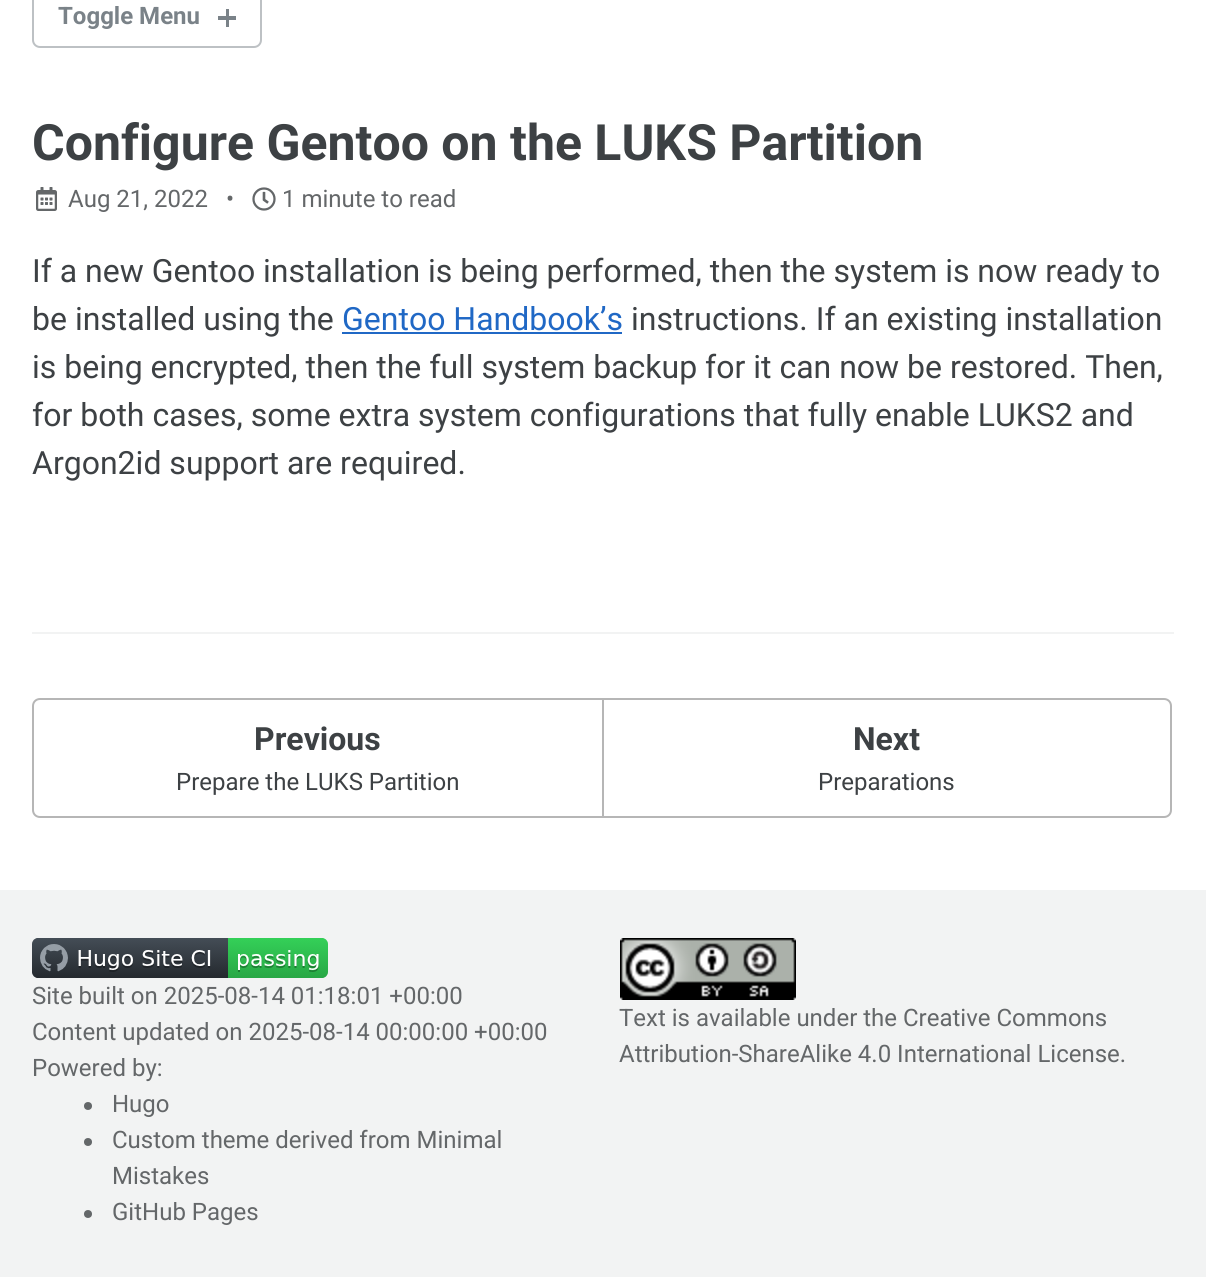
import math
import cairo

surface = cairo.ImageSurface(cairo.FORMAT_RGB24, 1206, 1277)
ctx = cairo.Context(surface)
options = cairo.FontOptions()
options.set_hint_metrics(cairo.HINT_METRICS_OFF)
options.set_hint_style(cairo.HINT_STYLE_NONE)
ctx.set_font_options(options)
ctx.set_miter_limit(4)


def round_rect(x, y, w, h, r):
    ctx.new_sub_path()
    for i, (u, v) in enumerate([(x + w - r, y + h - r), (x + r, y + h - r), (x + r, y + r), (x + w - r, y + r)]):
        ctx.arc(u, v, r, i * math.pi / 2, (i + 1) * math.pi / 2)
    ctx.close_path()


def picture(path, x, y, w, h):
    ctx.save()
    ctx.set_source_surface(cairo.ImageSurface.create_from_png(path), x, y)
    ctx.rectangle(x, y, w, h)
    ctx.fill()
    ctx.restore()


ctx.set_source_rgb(1, 1, 1)
ctx.paint()
round_rect(33, -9, 228, 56, 7)
ctx.set_source_rgb(0.741, 0.757, 0.769)
ctx.stroke()
ctx.select_font_face("Roboto", cairo.FONT_SLANT_NORMAL, cairo.FONT_WEIGHT_BOLD)
ctx.set_font_size(24)
ctx.set_source_rgb(0.478, 0.51, 0.533)
ctx.move_to(58, 24)
ctx.show_text("Toggle Menu")
ctx.rectangle(218, 16, 18, 4)
ctx.fill()
ctx.rectangle(226, 9, 3, 18)
ctx.fill()
ctx.set_font_size(50)
ctx.set_source_rgb(0.239, 0.255, 0.267)
ctx.move_to(32, 160)
ctx.show_text("Configure Gentoo on the LUKS Partition")
picture("img1.png", 36, 187, 21, 24)
ctx.select_font_face("Roboto")
ctx.set_font_size(24)
ctx.set_source_rgb(0.392, 0.404, 0.412)
ctx.move_to(68, 207)
ctx.show_text("Aug 21, 2022")
ctx.move_to(226, 207)
ctx.show_text("•")
picture("img2.png", 252, 187, 24, 24)
ctx.move_to(282, 207)
ctx.show_text("1 minute to read")
ctx.set_font_size(32)
ctx.set_source_rgb(0.239, 0.255, 0.267)
ctx.move_to(32, 282)
ctx.show_text("If a new Gentoo installation is being performed, then the system is now ready to")
ctx.move_to(32, 330)
ctx.show_text("be installed using the")
ctx.set_source_rgb(0.125, 0.408, 0.773)
ctx.move_to(342, 330)
ctx.show_text("Gentoo Handbook’s")
ctx.rectangle(342, 332, 280, 2)
ctx.fill()
ctx.set_source_rgb(0.239, 0.255, 0.267)
ctx.move_to(631, 330)
ctx.show_text("instructions. If an existing installation")
ctx.move_to(32, 378)
ctx.show_text("is being encrypted, then the full system backup for it can now be restored. Then,")
ctx.move_to(32, 426)
ctx.show_text("for both cases, some extra system configurations that fully enable LUKS2 and")
ctx.move_to(32, 474)
ctx.show_text("Argon2id support are required.")
ctx.set_source_rgb(0.949, 0.953, 0.953)
ctx.rectangle(32, 632, 1142, 2)
ctx.fill()
ctx.new_path()
ctx.move_to(40, 699)
ctx.line_to(603, 699)
ctx.line_to(603, 817)
ctx.line_to(40, 817)
ctx.curve_to(36, 817, 33, 814, 33, 810)
ctx.line_to(33, 706)
ctx.curve_to(33, 702, 36, 699, 40, 699)
ctx.close_path()
ctx.set_source_rgb(0.714, 0.714, 0.714)
ctx.stroke()
ctx.select_font_face("Roboto", cairo.FONT_SLANT_NORMAL, cairo.FONT_WEIGHT_BOLD)
ctx.set_source_rgb(0.239, 0.255, 0.267)
ctx.move_to(254, 750)
ctx.show_text("Previous")
ctx.select_font_face("Roboto")
ctx.set_font_size(24)
ctx.move_to(176, 790)
ctx.show_text("Prepare the LUKS Partition")
ctx.new_path()
ctx.move_to(603, 699)
ctx.line_to(1164, 699)
ctx.curve_to(1168, 699, 1171, 702, 1171, 706)
ctx.line_to(1171, 810)
ctx.curve_to(1171, 814, 1168, 817, 1164, 817)
ctx.line_to(603, 817)
ctx.close_path()
ctx.set_source_rgb(0.714, 0.714, 0.714)
ctx.stroke()
ctx.select_font_face("Roboto", cairo.FONT_SLANT_NORMAL, cairo.FONT_WEIGHT_BOLD)
ctx.set_font_size(32)
ctx.set_source_rgb(0.239, 0.255, 0.267)
ctx.move_to(853, 750)
ctx.show_text("Next")
ctx.select_font_face("Roboto")
ctx.set_font_size(24)
ctx.move_to(818, 790)
ctx.show_text("Preparations")
ctx.set_source_rgb(0.949, 0.953, 0.953)
ctx.rectangle(0, 890, 1206, 387)
ctx.fill()
picture("img3.png", 32, 938, 296, 40)
ctx.set_source_rgb(0.392, 0.404, 0.412)
ctx.move_to(32, 1004)
ctx.show_text("Site built on 2025-08-14 01:18:01 +00:00")
ctx.move_to(32, 1040)
ctx.show_text("Content updated on 2025-08-14 00:00:00 +00:00")
ctx.move_to(32, 1076)
ctx.show_text("Powered by:")
ctx.new_path()
ctx.arc(88, 1106, 4, 0, 2 * math.pi)
ctx.fill()
ctx.move_to(112, 1112)
ctx.show_text("Hugo")
ctx.new_path()
ctx.arc(88, 1142, 4, 0, 2 * math.pi)
ctx.fill()
ctx.move_to(112, 1148)
ctx.show_text("Custom theme derived from Minimal")
ctx.move_to(112, 1184)
ctx.show_text("Mistakes")
ctx.new_path()
ctx.arc(88, 1214, 4, 0, 2 * math.pi)
ctx.fill()
ctx.move_to(112, 1220)
ctx.show_text("GitHub Pages")
picture("img4.png", 620, 938, 176, 62)
ctx.move_to(619, 1026)
ctx.show_text("Text is available under the Creative Commons")
ctx.move_to(619, 1062)
ctx.show_text("Attribution-ShareAlike 4.0 International License.")
surface.write_to_png("page.png")
